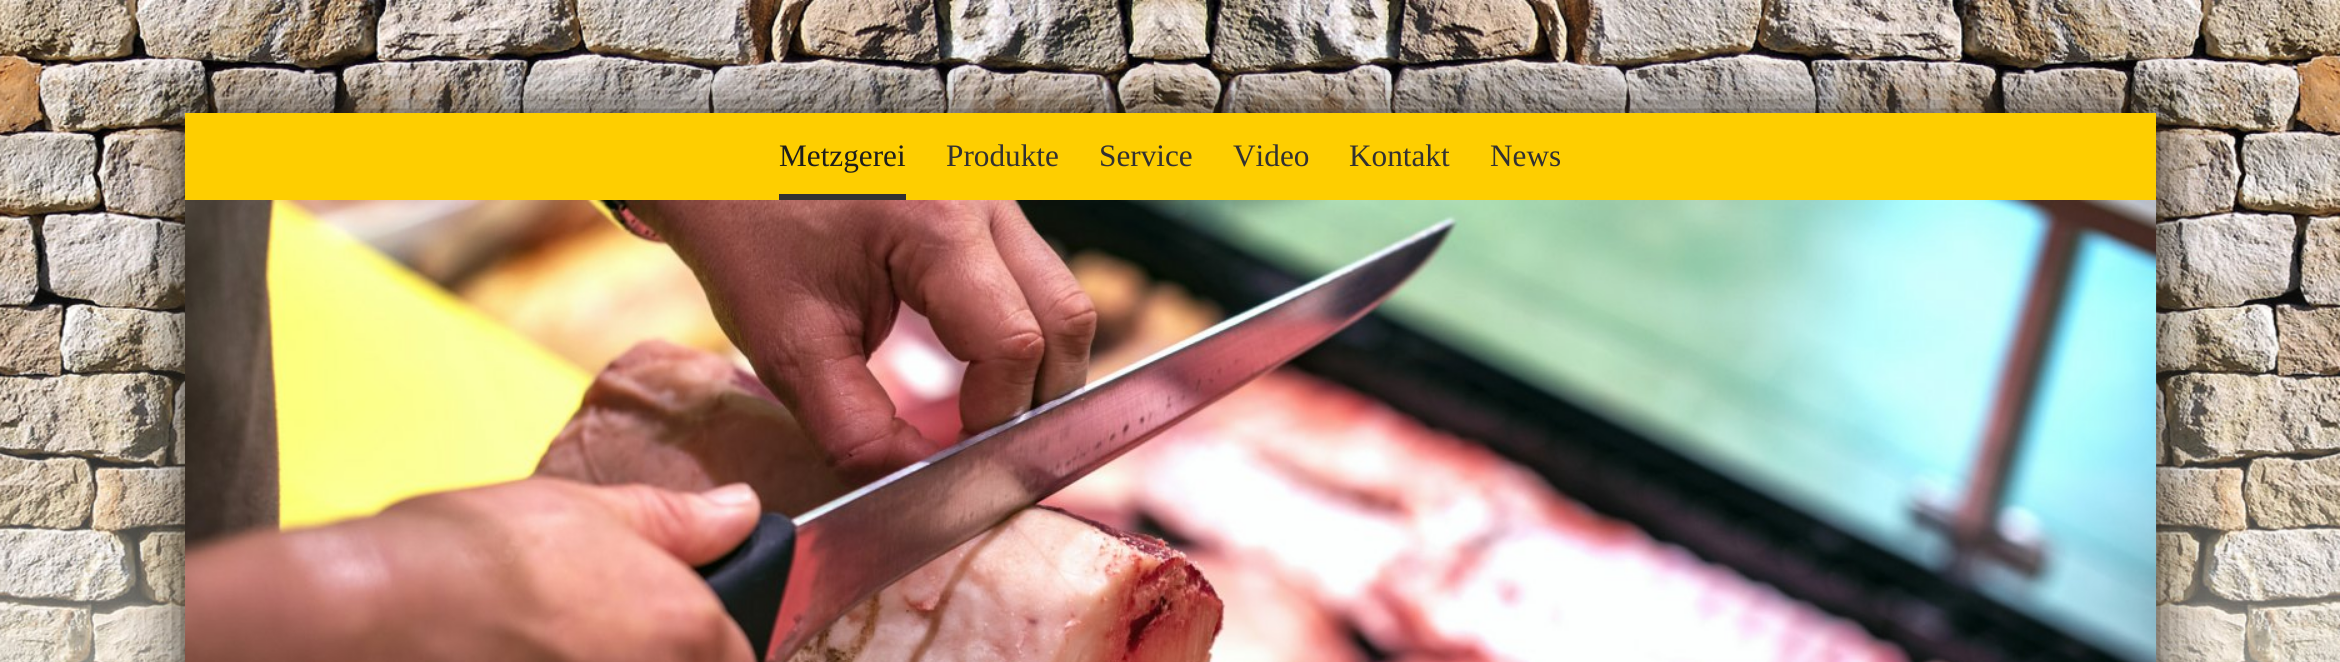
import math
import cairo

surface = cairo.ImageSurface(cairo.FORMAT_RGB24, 2340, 662)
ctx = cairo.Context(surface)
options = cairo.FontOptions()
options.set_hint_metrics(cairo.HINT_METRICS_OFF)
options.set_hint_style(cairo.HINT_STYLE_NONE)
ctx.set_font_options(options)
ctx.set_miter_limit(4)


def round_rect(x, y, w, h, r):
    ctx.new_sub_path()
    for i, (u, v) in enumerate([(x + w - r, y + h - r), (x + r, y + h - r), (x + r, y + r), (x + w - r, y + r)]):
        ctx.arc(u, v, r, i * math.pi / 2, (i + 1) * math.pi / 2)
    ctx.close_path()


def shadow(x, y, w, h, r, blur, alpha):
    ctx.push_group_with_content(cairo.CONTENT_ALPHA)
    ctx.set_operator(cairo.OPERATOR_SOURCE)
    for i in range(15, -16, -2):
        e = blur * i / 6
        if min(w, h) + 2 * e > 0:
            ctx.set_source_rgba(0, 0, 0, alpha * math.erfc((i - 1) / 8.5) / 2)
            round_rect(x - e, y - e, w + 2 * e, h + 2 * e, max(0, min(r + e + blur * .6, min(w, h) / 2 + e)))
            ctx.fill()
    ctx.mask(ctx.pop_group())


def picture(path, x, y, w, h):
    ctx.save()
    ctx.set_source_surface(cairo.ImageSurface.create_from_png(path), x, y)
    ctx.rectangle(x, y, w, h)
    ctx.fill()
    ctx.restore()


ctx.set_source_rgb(1, 1, 1)
ctx.paint()
picture("img1.png", 0, 0, 2340, 662)
ctx.set_source_rgb(0.153, 0.122, 0.078)
shadow(185, 113, 1971, 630, 0, 27, 1)
ctx.set_source_rgb(0.996, 0.808, 0)
ctx.rectangle(185, 113, 1971, 87)
ctx.fill()
ctx.select_font_face("Liberation Serif")
ctx.set_font_size(31.25)
ctx.set_source_rgb(0.114, 0.114, 0.106)
ctx.move_to(779, 166)
ctx.show_text("Metzgerei")
ctx.set_source_rgb(0.196, 0.192, 0.192)
ctx.rectangle(779, 194, 127, 6)
ctx.fill()
ctx.move_to(946, 166)
ctx.show_text("Produkte")
ctx.move_to(1099, 166)
ctx.show_text("Service")
ctx.move_to(1233, 166)
ctx.show_text("Video")
ctx.move_to(1349, 166)
ctx.show_text("Kontakt")
ctx.move_to(1490, 166)
ctx.show_text("News")
picture("img2.png", 185, 200, 1972, 462)
surface.write_to_png("page.png")
